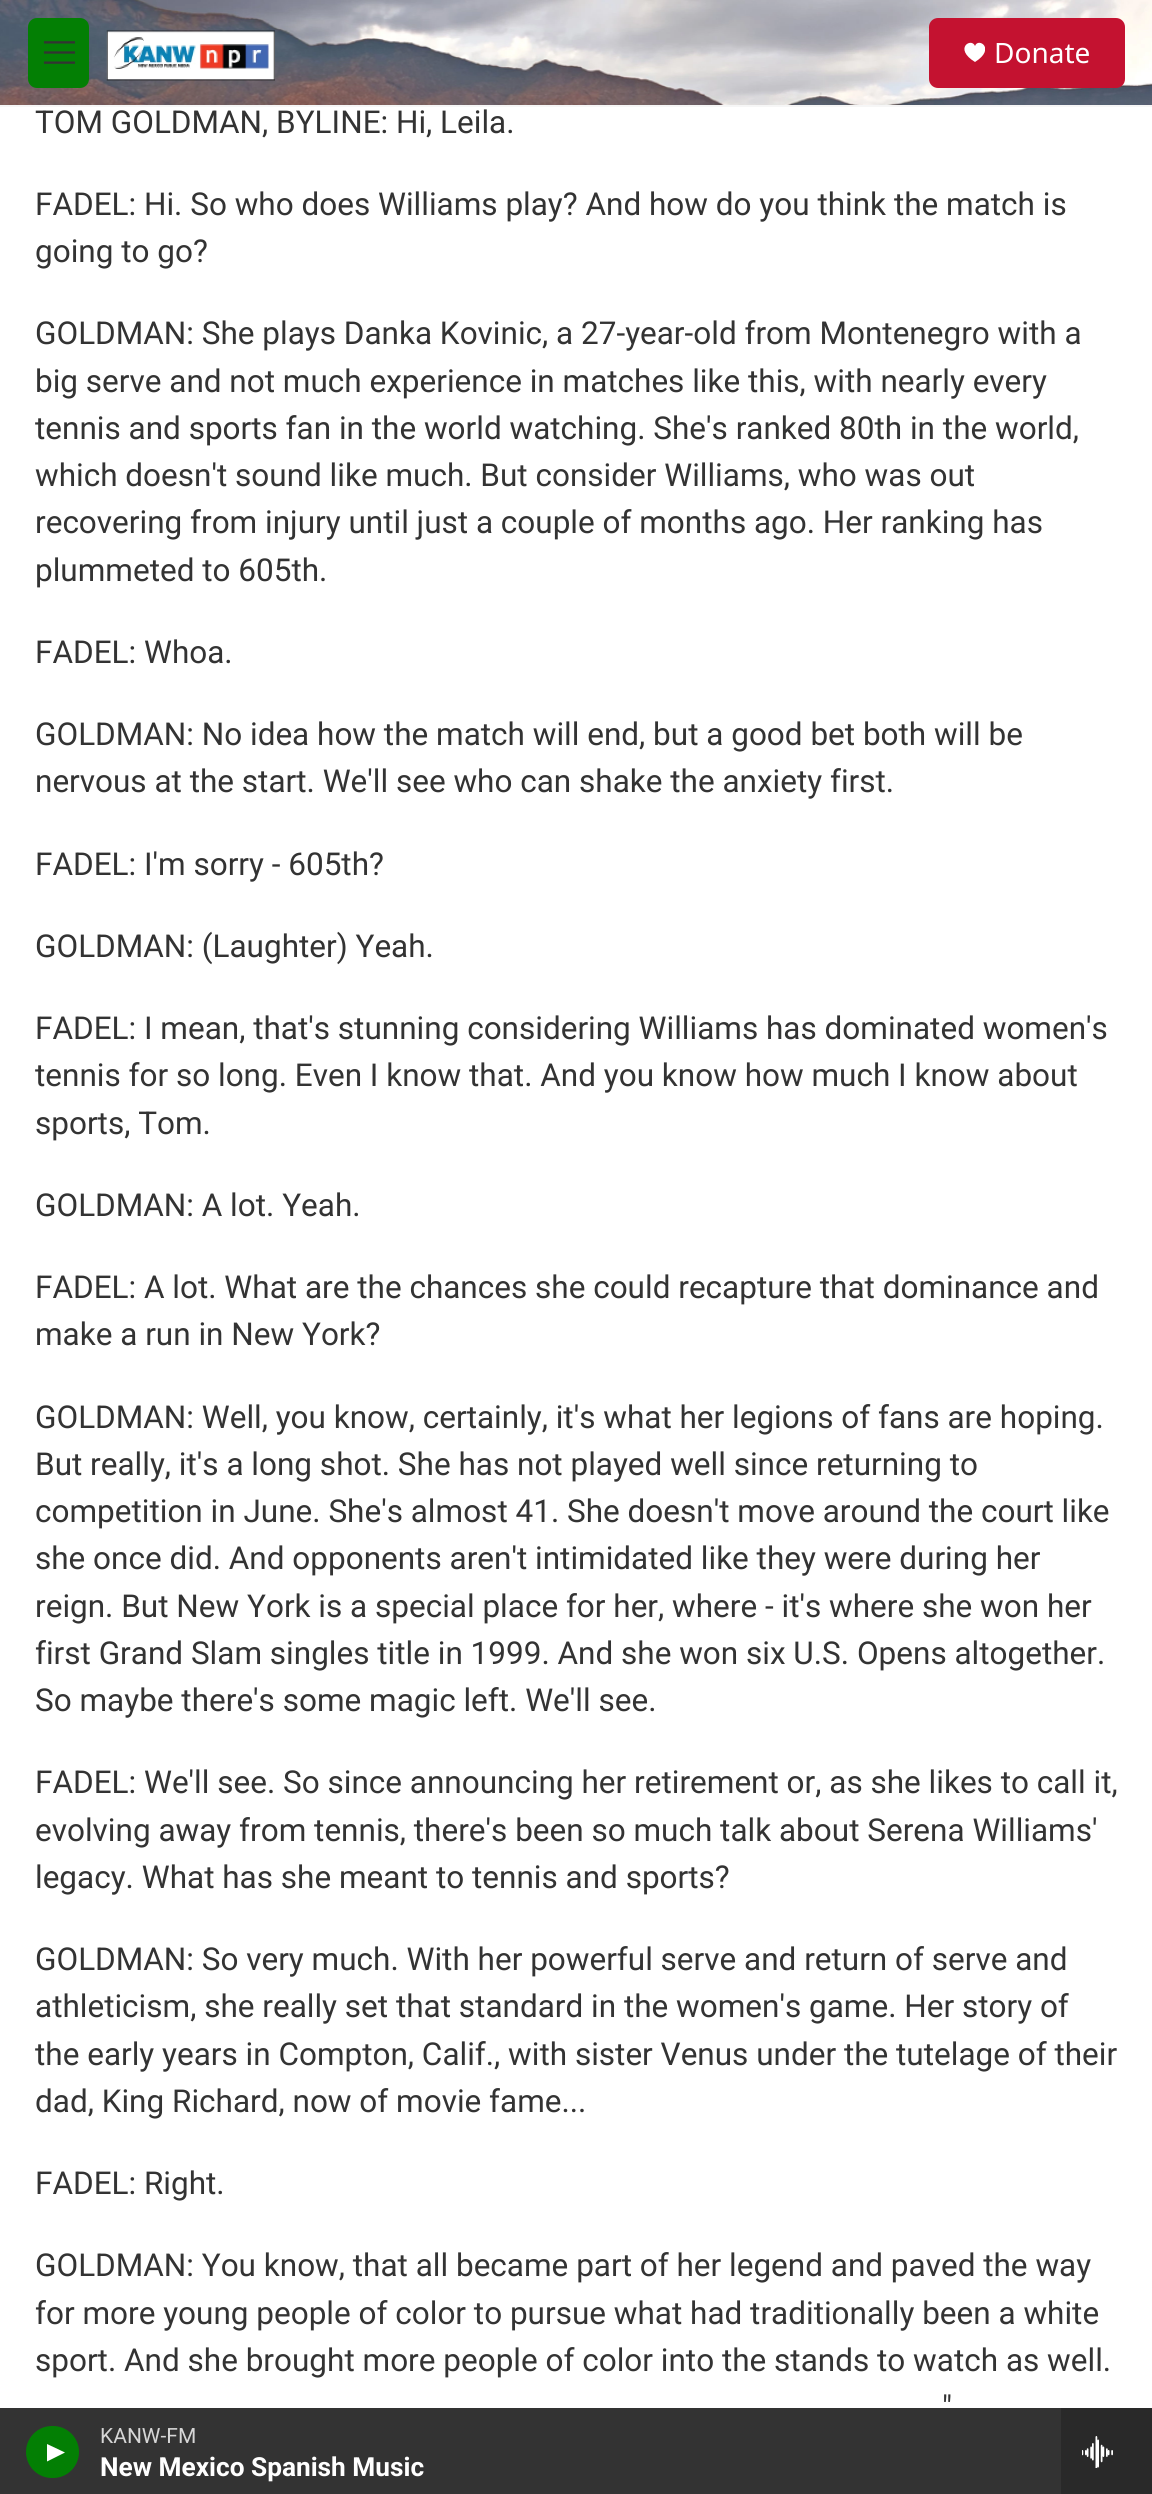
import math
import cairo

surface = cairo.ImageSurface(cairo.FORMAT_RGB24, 1152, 2494)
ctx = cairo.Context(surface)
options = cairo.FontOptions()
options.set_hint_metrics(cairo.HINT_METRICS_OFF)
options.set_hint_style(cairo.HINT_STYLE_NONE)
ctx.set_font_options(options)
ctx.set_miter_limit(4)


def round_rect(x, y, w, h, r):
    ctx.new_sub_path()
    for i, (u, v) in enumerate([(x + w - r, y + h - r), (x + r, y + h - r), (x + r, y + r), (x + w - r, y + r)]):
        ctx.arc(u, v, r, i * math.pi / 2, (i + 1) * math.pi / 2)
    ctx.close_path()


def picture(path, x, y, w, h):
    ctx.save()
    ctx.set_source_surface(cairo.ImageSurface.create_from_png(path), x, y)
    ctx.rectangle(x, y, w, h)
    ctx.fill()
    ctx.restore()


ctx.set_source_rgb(1, 1, 1)
ctx.paint()
ctx.set_source_rgb(0.961, 0.961, 0.961)
ctx.rectangle(0, 105, 1152, 2)
ctx.fill()
picture("img1.png", 0, 0, 1152, 105)
ctx.set_source_rgb(0.012, 0.498, 0.016)
round_rect(28, 18, 61, 70, 9)
ctx.fill()
picture("img2.png", 44, 41, 31, 23)
picture("img3.png", 106, 30, 169, 51)
ctx.set_source_rgb(0.769, 0.071, 0.188)
round_rect(929, 18, 196, 70, 9)
ctx.fill()
ctx.save()
ctx.rectangle(964, 42, 21, 21)
ctx.clip()
ctx.set_source_rgb(1, 1, 1)
ctx.new_path()
ctx.move_to(975, 46)
ctx.curve_to(971.5, 37, 953, 48.5, 975, 62)
ctx.curve_to(996.5, 48.5, 978, 37, 975, 46)
ctx.close_path()
ctx.fill()
ctx.restore()
ctx.select_font_face("Noto Sans")
ctx.set_font_size(28)
ctx.set_source_rgb(1, 1, 1)
ctx.move_to(994, 63)
ctx.show_text("Donate")
ctx.set_source_rgb(0.2, 0.2, 0.2)
ctx.rectangle(0, 2408, 1061, 86)
ctx.fill()
ctx.set_source_rgb(0.012, 0.498, 0.016)
round_rect(26, 2426, 53, 52, 26)
ctx.fill()
ctx.set_source_rgb(1, 1, 1)
ctx.new_path()
ctx.move_to(47, 2444)
ctx.line_to(65, 2452.5)
ctx.line_to(47, 2461.5)
ctx.close_path()
ctx.fill()
ctx.select_font_face("Roboto")
ctx.set_font_size(21)
ctx.set_source_rgb(0.839, 0.839, 0.839)
ctx.move_to(100, 2443)
ctx.show_text("KANW-FM")
ctx.select_font_face("Roboto", cairo.FONT_SLANT_NORMAL, cairo.FONT_WEIGHT_BOLD)
ctx.set_font_size(26.25)
ctx.set_source_rgb(1, 1, 1)
ctx.move_to(100, 2476)
ctx.show_text("New Mexico Spanish Music")
ctx.set_source_rgb(0.161, 0.161, 0.161)
ctx.rectangle(1061, 2408, 91, 86)
ctx.fill()
picture("img4.png", 1082, 2436, 31, 32)
ctx.select_font_face("Roboto")
ctx.set_font_size(31.5)
ctx.set_source_rgb(0.2, 0.2, 0.2)
ctx.move_to(35, 133)
ctx.show_text("TOM GOLDMAN, BYLINE: Hi, Leila.")
ctx.move_to(35, 215)
ctx.show_text("FADEL: Hi. So who does Williams play? And how do you think the match is")
ctx.move_to(35, 262)
ctx.show_text("going to go?")
ctx.move_to(35, 344)
ctx.show_text("GOLDMAN: She plays Danka Kovinic, a 27-year-old from Montenegro with a")
ctx.move_to(35, 392)
ctx.show_text("big serve and not much experience in matches like this, with nearly every")
ctx.move_to(35, 439)
ctx.show_text("tennis and sports fan in the world watching. She's ranked 80th in the world,")
ctx.move_to(35, 486)
ctx.show_text("which doesn't sound like much. But consider Williams, who was out")
ctx.move_to(35, 533)
ctx.show_text("recovering from injury until just a couple of months ago. Her ranking has")
ctx.move_to(35, 581)
ctx.show_text("plummeted to 605th.")
ctx.move_to(35, 663)
ctx.show_text("FADEL: Whoa.")
ctx.move_to(35, 745)
ctx.show_text("GOLDMAN: No idea how the match will end, but a good bet both will be")
ctx.move_to(35, 792)
ctx.show_text("nervous at the start. We'll see who can shake the anxiety first.")
ctx.move_to(35, 875)
ctx.show_text("FADEL: I'm sorry - 605th?")
ctx.move_to(35, 957)
ctx.show_text("GOLDMAN: (Laughter) Yeah.")
ctx.move_to(35, 1039)
ctx.show_text("FADEL: I mean, that's stunning considering Williams has dominated women's")
ctx.move_to(35, 1086)
ctx.show_text("tennis for so long. Even I know that. And you know how much I know about")
ctx.move_to(35, 1134)
ctx.show_text("sports, Tom.")
ctx.move_to(35, 1216)
ctx.show_text("GOLDMAN: A lot. Yeah.")
ctx.move_to(35, 1298)
ctx.show_text("FADEL: A lot. What are the chances she could recapture that dominance and")
ctx.move_to(35, 1345)
ctx.show_text("make a run in New York?")
ctx.move_to(35, 1428)
ctx.show_text("GOLDMAN: Well, you know, certainly, it's what her legions of fans are hoping.")
ctx.move_to(35, 1475)
ctx.show_text("But really, it's a long shot. She has not played well since returning to")
ctx.move_to(35, 1522)
ctx.show_text("competition in June. She's almost 41. She doesn't move around the court like")
ctx.move_to(35, 1569)
ctx.show_text("she once did. And opponents aren't intimidated like they were during her")
ctx.move_to(35, 1617)
ctx.show_text("reign. But New York is a special place for her, where - it's where she won her")
ctx.move_to(35, 1664)
ctx.show_text("first Grand Slam singles title in 1999. And she won six U.S. Opens altogether.")
ctx.move_to(35, 1711)
ctx.show_text("So maybe there's some magic left. We'll see.")
ctx.move_to(35, 1793)
ctx.show_text("FADEL: We'll see. So since announcing her retirement or, as she likes to call it,")
ctx.move_to(35, 1841)
ctx.show_text("evolving away from tennis, there's been so much talk about Serena Williams'")
ctx.move_to(35, 1888)
ctx.show_text("legacy. What has she meant to tennis and sports?")
ctx.move_to(35, 1970)
ctx.show_text("GOLDMAN: So very much. With her powerful serve and return of serve and")
ctx.move_to(35, 2017)
ctx.show_text("athleticism, she really set that standard in the women's game. Her story of")
ctx.move_to(35, 2065)
ctx.show_text("the early years in Compton, Calif., with sister Venus under the tutelage of their")
ctx.move_to(35, 2112)
ctx.show_text("dad, King Richard, now of movie fame...")
ctx.move_to(35, 2194)
ctx.show_text("FADEL: Right.")
ctx.move_to(35, 2276)
ctx.show_text("GOLDMAN: You know, that all became part of her legend and paved the way")
ctx.move_to(35, 2324)
ctx.show_text("for more young people of color to pursue what had traditionally been a white")
ctx.move_to(35, 2371)
ctx.show_text("sport. And she brought more people of color into the stands to watch as well.")
ctx.move_to(942, 2418)
ctx.show_text("\"")
surface.write_to_png("page.png")
